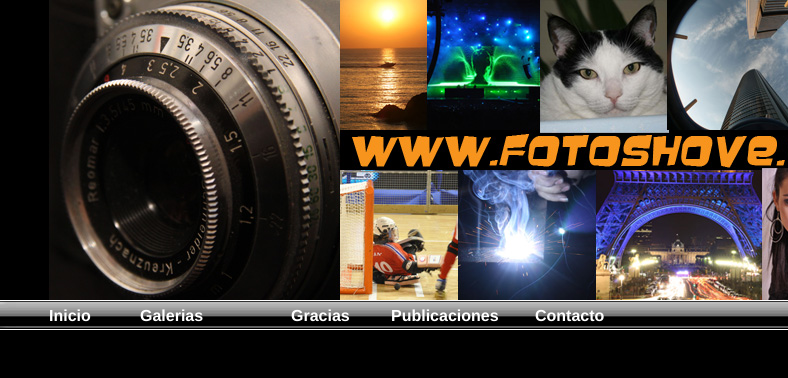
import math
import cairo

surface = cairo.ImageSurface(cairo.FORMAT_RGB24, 788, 378)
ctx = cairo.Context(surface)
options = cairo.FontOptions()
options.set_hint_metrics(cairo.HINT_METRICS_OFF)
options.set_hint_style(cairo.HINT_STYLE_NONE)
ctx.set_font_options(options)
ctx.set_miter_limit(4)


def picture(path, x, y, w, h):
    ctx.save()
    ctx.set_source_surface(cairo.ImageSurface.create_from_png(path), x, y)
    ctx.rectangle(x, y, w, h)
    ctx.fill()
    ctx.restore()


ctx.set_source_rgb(0, 0, 0)
ctx.paint()
picture("img1.png", 48, 0, 740, 300)
picture("img2.png", 0, 300, 788, 30)
ctx.select_font_face("Liberation Sans", cairo.FONT_SLANT_NORMAL, cairo.FONT_WEIGHT_BOLD)
ctx.set_font_size(16)
ctx.set_source_rgb(1, 1, 1)
ctx.move_to(49, 321)
ctx.show_text("Inicio")
ctx.move_to(140, 321)
ctx.show_text("Galerias")
ctx.move_to(291, 321)
ctx.show_text("Gracias")
ctx.move_to(391, 321)
ctx.show_text("Publicaciones")
ctx.move_to(535, 321)
ctx.show_text("Contacto")
surface.write_to_png("page.png")
